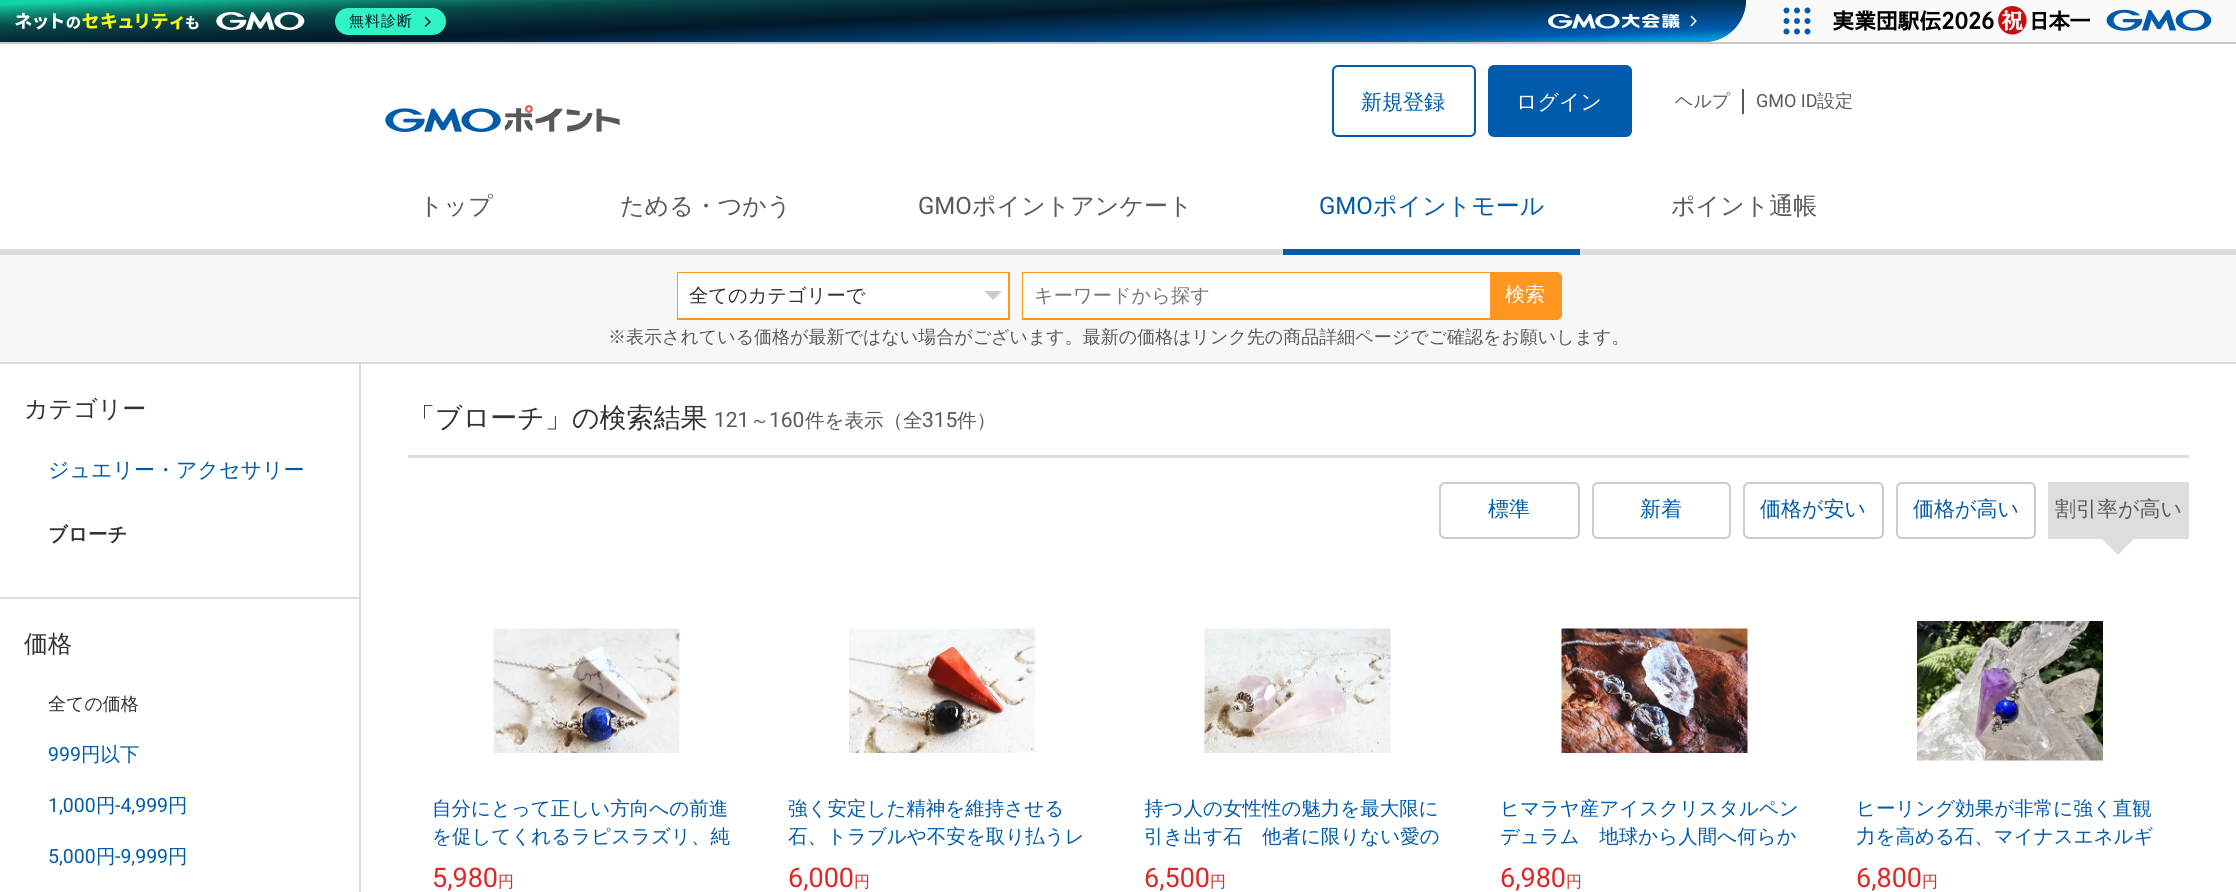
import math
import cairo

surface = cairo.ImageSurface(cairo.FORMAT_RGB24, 2236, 892)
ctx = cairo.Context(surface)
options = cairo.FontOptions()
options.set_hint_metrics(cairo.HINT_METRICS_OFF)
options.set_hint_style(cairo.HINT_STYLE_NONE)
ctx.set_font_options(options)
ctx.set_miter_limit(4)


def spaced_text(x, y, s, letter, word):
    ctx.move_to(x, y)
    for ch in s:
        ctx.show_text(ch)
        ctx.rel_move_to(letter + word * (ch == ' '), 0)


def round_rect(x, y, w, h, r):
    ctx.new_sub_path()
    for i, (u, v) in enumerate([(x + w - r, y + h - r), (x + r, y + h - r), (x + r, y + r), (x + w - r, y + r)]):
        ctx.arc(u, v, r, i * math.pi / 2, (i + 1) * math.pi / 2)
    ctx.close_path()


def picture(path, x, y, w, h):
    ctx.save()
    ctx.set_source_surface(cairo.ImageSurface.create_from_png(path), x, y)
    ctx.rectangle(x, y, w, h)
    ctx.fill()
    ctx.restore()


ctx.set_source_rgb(1, 1, 1)
ctx.paint()
ctx.set_source_rgb(0.98, 0.98, 0.98)
ctx.rectangle(1704, 0, 532, 42)
ctx.fill()
ctx.set_source_rgb(0.784, 0.784, 0.784)
ctx.rectangle(0, 42, 2236, 2)
ctx.fill()
gradient = cairo.LinearGradient(871, -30, 875, 72)
gradient.add_color_stop_rgba(0, 0.075, 0.831, 0.647, 1)
gradient.add_color_stop_rgba(0.22, 0.055, 0.451, 0.396, 1)
gradient.add_color_stop_rgba(0.51, 0.043, 0.302, 0.294, 1)
ctx.set_source(gradient)
ctx.new_path()
ctx.move_to(0, 0)
ctx.line_to(1746, 0)
ctx.curve_to(1746, 23, 1727, 42, 1704, 42)
ctx.line_to(0, 42)
ctx.close_path()
ctx.fill()
gradient = cairo.LinearGradient(875, 72, 871, -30)
gradient.add_color_stop_rgba(0, 0.004, 0.612, 0.851, 1)
gradient.add_color_stop_rgba(0.1, 0, 0.357, 0.675, 1)
gradient.add_color_stop_rgba(0.51, 0.008, 0.098, 0.165, 1)
gradient.add_color_stop_rgba(1, 0.008, 0.098, 0.165, 0)
ctx.set_source(gradient)
ctx.new_path()
ctx.move_to(0, 0)
ctx.line_to(1746, 0)
ctx.curve_to(1746, 23, 1727, 42, 1704, 42)
ctx.line_to(0, 42)
ctx.close_path()
ctx.fill()
picture("img1.png", 15, 12, 290, 18)
ctx.set_source_rgb(0.188, 0.957, 0.773)
round_rect(335, 8, 111, 27, 13.5)
ctx.fill()
ctx.select_font_face("WenQuanYi Zen Hei Medium")
ctx.set_font_size(15)
ctx.set_source_rgb(0.008, 0.09, 0.145)
spaced_text(349, 26, "無料診断", 1, 0)
ctx.new_path()
ctx.move_to(425.5, 17.5)
ctx.line_to(430, 22)
ctx.line_to(425.5, 26)
ctx.set_line_width(1.4)
ctx.set_line_cap(cairo.LINE_CAP_ROUND)
ctx.set_line_join(cairo.LINE_JOIN_ROUND)
ctx.stroke()
picture("img2.png", 1548, 14, 149, 15)
picture("img3.png", 1783, 7, 28, 28)
picture("img4.png", 1833, 6, 379, 29)
round_rect(1333, 66, 142, 70, 5)
ctx.set_source_rgb(0, 0.357, 0.675)
ctx.set_line_width(2)
ctx.set_line_cap(cairo.LINE_CAP_BUTT)
ctx.set_line_join(cairo.LINE_JOIN_MITER)
ctx.stroke()
ctx.set_font_size(21)
ctx.move_to(1361, 109)
ctx.show_text("新規登録")
round_rect(1488, 65, 144, 72, 6)
ctx.fill()
ctx.set_source_rgb(1, 1, 1)
ctx.move_to(1516, 109)
ctx.show_text("ログイン")
ctx.set_source_rgb(0.353, 0.345, 0.345)
ctx.rectangle(1742, 89, 2, 25)
ctx.fill()
ctx.set_font_size(18)
ctx.move_to(1675, 107)
ctx.show_text("ヘルプ")
ctx.select_font_face("Roboto")
ctx.move_to(1756, 107)
ctx.show_text("GMO ID")
ctx.select_font_face("WenQuanYi Zen Hei Medium")
ctx.move_to(1817, 107)
ctx.show_text("設定")
picture("img5.png", 385, 105, 235, 27)
ctx.set_font_size(24)
ctx.move_to(419, 214)
ctx.show_text("トップ")
ctx.move_to(620, 214)
ctx.show_text("ためる・つかう")
ctx.select_font_face("Roboto")
ctx.move_to(918, 214)
ctx.show_text("GMO")
ctx.select_font_face("WenQuanYi Zen Hei Medium")
ctx.move_to(972, 214)
ctx.show_text("ポイントアンケート")
ctx.select_font_face("Roboto")
ctx.set_source_rgb(0, 0.357, 0.675)
ctx.move_to(1319, 214)
ctx.show_text("GMO")
ctx.select_font_face("WenQuanYi Zen Hei Medium")
ctx.move_to(1373, 214)
ctx.show_text("ポイントモール")
ctx.set_source_rgb(0.867, 0.867, 0.867)
ctx.rectangle(0, 249, 2236, 6)
ctx.fill()
ctx.set_source_rgb(0, 0.357, 0.675)
ctx.rectangle(1283, 249, 297, 6)
ctx.fill()
ctx.set_source_rgb(0.353, 0.345, 0.345)
ctx.move_to(1671, 214)
ctx.show_text("ポイント通帳")
ctx.set_source_rgb(0.965, 0.965, 0.965)
ctx.rectangle(0, 255, 2236, 107)
ctx.fill()
ctx.set_source_rgb(0.867, 0.867, 0.867)
ctx.rectangle(0, 362, 2236, 2)
ctx.fill()
ctx.rectangle(678, 273, 331, 46)
ctx.set_source_rgb(1, 0.588, 0.125)
ctx.stroke()
ctx.set_source_rgb(1, 1, 1)
ctx.rectangle(678, 273, 330, 45)
ctx.fill()
ctx.set_font_size(19.25)
ctx.set_source_rgb(0.196, 0.196, 0.196)
ctx.move_to(689, 302)
ctx.show_text("全てのカテゴリーで")
ctx.set_source_rgb(0.8, 0.8, 0.8)
ctx.new_path()
ctx.move_to(984, 291)
ctx.line_to(1002, 291)
ctx.line_to(993, 300)
ctx.close_path()
ctx.fill()
ctx.new_path()
ctx.move_to(1023, 273)
ctx.line_to(1556, 273)
ctx.curve_to(1559, 273, 1561, 275, 1561, 278)
ctx.line_to(1561, 314)
ctx.curve_to(1561, 317, 1559, 319, 1556, 319)
ctx.line_to(1023, 319)
ctx.close_path()
ctx.set_source_rgb(1, 0.588, 0.125)
ctx.stroke()
ctx.set_source_rgb(1, 1, 1)
ctx.rectangle(1023, 273, 537, 45)
ctx.fill()
ctx.set_source_rgb(0.459, 0.459, 0.459)
ctx.move_to(1034, 302)
ctx.show_text("キーワードから探す")
ctx.set_source_rgb(1, 0.588, 0.125)
ctx.new_path()
ctx.move_to(1490, 272)
ctx.line_to(1556, 272)
ctx.curve_to(1559.5, 272, 1562, 274.5, 1562, 278)
ctx.line_to(1562, 314)
ctx.curve_to(1562, 317.5, 1559.5, 320, 1556, 320)
ctx.line_to(1490, 320)
ctx.close_path()
ctx.fill()
ctx.set_font_size(20)
ctx.set_source_rgb(1, 1, 1)
ctx.move_to(1505, 301)
ctx.show_text("検索")
ctx.set_font_size(18)
ctx.set_source_rgb(0.353, 0.345, 0.345)
ctx.move_to(608, 343)
ctx.show_text("※表示されている価格が最新ではない場合がございます。最新の価格はリンク先の商品詳細ページでご確認をお願いします。")
ctx.set_source_rgb(0.867, 0.867, 0.867)
ctx.rectangle(359, 363, 2, 529)
ctx.fill()
ctx.rectangle(0, 597, 359, 2)
ctx.fill()
ctx.set_font_size(24)
ctx.set_source_rgb(0.196, 0.196, 0.196)
ctx.move_to(24, 417)
ctx.show_text("カテゴリー")
ctx.set_font_size(21)
ctx.set_source_rgb(0, 0.357, 0.675)
ctx.move_to(48, 477)
ctx.show_text("ジュエリー・アクセサリー")
ctx.select_font_face("WenQuanYi Zen Hei", cairo.FONT_SLANT_NORMAL, cairo.FONT_WEIGHT_BOLD)
ctx.set_font_size(19.5)
ctx.set_source_rgb(0.196, 0.196, 0.196)
ctx.move_to(48, 541)
ctx.show_text("ブローチ")
ctx.select_font_face("WenQuanYi Zen Hei Medium")
ctx.set_font_size(24)
ctx.move_to(24, 652)
ctx.show_text("価格")
ctx.set_font_size(18)
ctx.move_to(48, 710)
ctx.show_text("全ての価格")
ctx.select_font_face("Roboto")
ctx.set_font_size(19.5)
ctx.set_source_rgb(0, 0.357, 0.675)
ctx.move_to(48, 761)
ctx.show_text("999")
ctx.select_font_face("WenQuanYi Zen Hei Medium")
ctx.move_to(81, 761)
ctx.show_text("円以下")
ctx.select_font_face("Roboto")
ctx.move_to(48, 812)
ctx.show_text("1,000")
ctx.select_font_face("WenQuanYi Zen Hei Medium")
ctx.move_to(96, 812)
ctx.show_text("円")
ctx.select_font_face("Roboto")
ctx.move_to(115, 812)
ctx.show_text("-4,999")
ctx.select_font_face("WenQuanYi Zen Hei Medium")
ctx.move_to(168, 812)
ctx.show_text("円")
ctx.select_font_face("Roboto")
ctx.move_to(48, 863)
ctx.show_text("5,000")
ctx.select_font_face("WenQuanYi Zen Hei Medium")
ctx.move_to(96, 863)
ctx.show_text("円")
ctx.select_font_face("Roboto")
ctx.move_to(115, 863)
ctx.show_text("-9,999")
ctx.select_font_face("WenQuanYi Zen Hei Medium")
ctx.move_to(168, 863)
ctx.show_text("円")
ctx.set_source_rgb(0.867, 0.867, 0.867)
ctx.rectangle(408, 455, 1781, 3)
ctx.fill()
ctx.set_font_size(27)
ctx.set_source_rgb(0.196, 0.196, 0.196)
ctx.move_to(408, 427)
ctx.show_text("「ブローチ」の検索結果")
ctx.select_font_face("Roboto")
ctx.set_font_size(21)
ctx.set_source_rgb(0.353, 0.345, 0.345)
ctx.move_to(714, 427)
ctx.show_text("121")
ctx.select_font_face("WenQuanYi Zen Hei Medium")
ctx.set_font_size(19.5)
ctx.move_to(750, 427)
ctx.show_text("～")
ctx.select_font_face("Roboto")
ctx.set_font_size(21)
ctx.move_to(769, 427)
ctx.show_text("160")
ctx.select_font_face("WenQuanYi Zen Hei Medium")
ctx.set_font_size(19.5)
ctx.move_to(805, 427)
ctx.show_text("件を表示（全")
ctx.select_font_face("Roboto")
ctx.set_font_size(21)
ctx.move_to(922, 427)
ctx.show_text("315")
ctx.select_font_face("WenQuanYi Zen Hei Medium")
ctx.set_font_size(19.5)
ctx.move_to(957, 427)
ctx.show_text("件）")
round_rect(1440, 483, 139, 55, 5)
ctx.set_source_rgb(0.8, 0.8, 0.8)
ctx.stroke()
ctx.set_font_size(21)
ctx.set_source_rgb(0, 0.357, 0.675)
ctx.move_to(1488, 516)
ctx.show_text("標準")
round_rect(1593, 483, 137, 55, 5)
ctx.set_source_rgb(0.8, 0.8, 0.8)
ctx.stroke()
ctx.set_source_rgb(0, 0.357, 0.675)
ctx.move_to(1640, 516)
ctx.show_text("新着")
round_rect(1744, 483, 139, 55, 5)
ctx.set_source_rgb(0.8, 0.8, 0.8)
ctx.stroke()
ctx.set_source_rgb(0, 0.357, 0.675)
ctx.move_to(1760, 516)
ctx.show_text("価格が安い")
round_rect(1897, 483, 138, 55, 5)
ctx.set_source_rgb(0.8, 0.8, 0.8)
ctx.stroke()
ctx.set_source_rgb(0, 0.357, 0.675)
ctx.move_to(1913, 516)
ctx.show_text("価格が高い")
ctx.set_source_rgb(0.867, 0.867, 0.867)
ctx.rectangle(2048, 482, 141, 57)
ctx.fill()
ctx.set_source_rgb(0.353, 0.345, 0.345)
ctx.move_to(2055, 516)
ctx.show_text("割引率が高い")
ctx.set_source_rgb(0.867, 0.867, 0.867)
ctx.new_path()
ctx.move_to(2100, 537)
ctx.line_to(2136, 537)
ctx.line_to(2118, 555)
ctx.close_path()
ctx.fill()
picture("img6.png", 493, 628, 187, 125)
ctx.set_font_size(19.5)
ctx.set_source_rgb(0, 0.357, 0.675)
ctx.move_to(432, 815)
ctx.show_text("自分にとって正しい方向への前進")
ctx.move_to(432, 843)
ctx.show_text("を促してくれるラピスラズリ、純")
ctx.select_font_face("Roboto")
ctx.set_font_size(27)
ctx.set_source_rgb(0.871, 0.153, 0.153)
ctx.move_to(432, 887)
ctx.show_text("5,980")
ctx.select_font_face("WenQuanYi Zen Hei Medium")
ctx.set_font_size(16)
ctx.move_to(498, 887)
ctx.show_text("円")
picture("img7.png", 849, 628, 186, 125)
ctx.set_font_size(19.5)
ctx.set_source_rgb(0, 0.357, 0.675)
ctx.move_to(788, 815)
ctx.show_text("強く安定した精神を維持させる")
ctx.move_to(788, 843)
ctx.show_text("石、トラブルや不安を取り払うレ")
ctx.select_font_face("Roboto")
ctx.set_font_size(27)
ctx.set_source_rgb(0.871, 0.153, 0.153)
ctx.move_to(788, 887)
ctx.show_text("6,000")
ctx.select_font_face("WenQuanYi Zen Hei Medium")
ctx.set_font_size(16)
ctx.move_to(854, 887)
ctx.show_text("円")
picture("img8.png", 1204, 628, 187, 125)
ctx.save()
ctx.rectangle(1145, 797, 307, 51)
ctx.clip()
ctx.set_font_size(19.5)
ctx.set_source_rgb(0, 0.357, 0.675)
ctx.move_to(1144, 815)
ctx.show_text("持つ人の女性性の魅力を最大限に")
ctx.restore()
ctx.set_font_size(19.5)
ctx.set_source_rgb(0, 0.357, 0.675)
ctx.move_to(1144, 843)
ctx.show_text("引き出す石　他者に限りない愛の")
ctx.select_font_face("Roboto")
ctx.set_font_size(27)
ctx.set_source_rgb(0.871, 0.153, 0.153)
ctx.move_to(1144, 887)
ctx.show_text("6,500")
ctx.select_font_face("WenQuanYi Zen Hei Medium")
ctx.set_font_size(16)
ctx.move_to(1210, 887)
ctx.show_text("円")
picture("img9.png", 1561, 628, 187, 125)
ctx.set_font_size(19.5)
ctx.set_source_rgb(0, 0.357, 0.675)
ctx.move_to(1500, 815)
ctx.show_text("ヒマラヤ産アイスクリスタルペン")
ctx.move_to(1500, 843)
ctx.show_text("デュラム　地球から人間へ何らか")
ctx.select_font_face("Roboto")
ctx.set_font_size(27)
ctx.set_source_rgb(0.871, 0.153, 0.153)
ctx.move_to(1500, 887)
ctx.show_text("6,980")
ctx.select_font_face("WenQuanYi Zen Hei Medium")
ctx.set_font_size(16)
ctx.move_to(1566, 887)
ctx.show_text("円")
picture("img10.png", 1917, 621, 186, 140)
ctx.set_font_size(19.5)
ctx.set_source_rgb(0, 0.357, 0.675)
ctx.move_to(1856, 815)
ctx.show_text("ヒーリング効果が非常に強く直観")
ctx.move_to(1856, 843)
ctx.show_text("力を高める石、マイナスエネルギ")
ctx.select_font_face("Roboto")
ctx.set_font_size(27)
ctx.set_source_rgb(0.871, 0.153, 0.153)
ctx.move_to(1856, 887)
ctx.show_text("6,800")
ctx.select_font_face("WenQuanYi Zen Hei Medium")
ctx.set_font_size(16)
ctx.move_to(1922, 887)
ctx.show_text("円")
surface.write_to_png("page.png")
